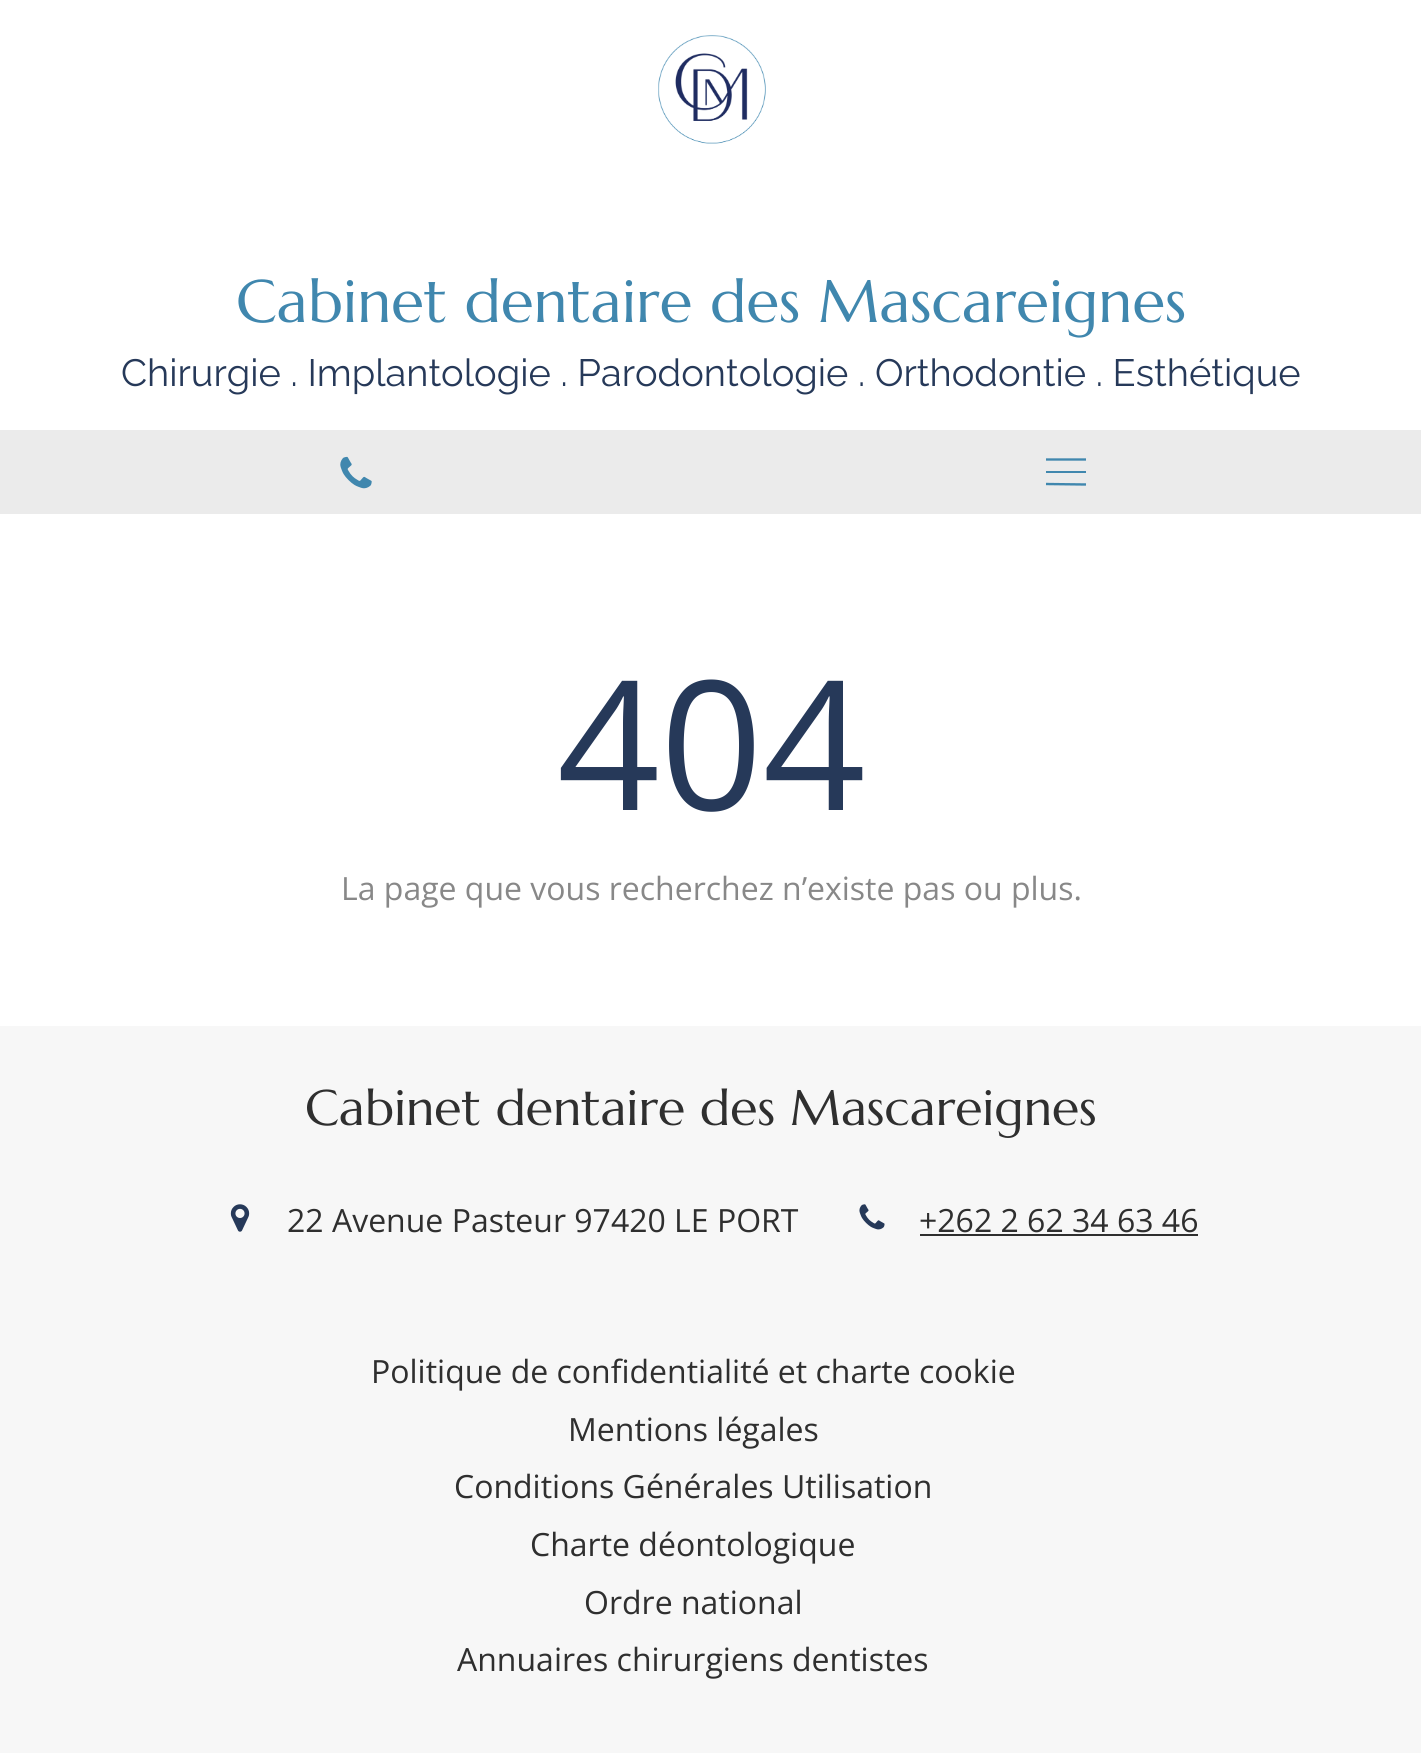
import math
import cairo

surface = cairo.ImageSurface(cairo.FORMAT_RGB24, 1421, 1753)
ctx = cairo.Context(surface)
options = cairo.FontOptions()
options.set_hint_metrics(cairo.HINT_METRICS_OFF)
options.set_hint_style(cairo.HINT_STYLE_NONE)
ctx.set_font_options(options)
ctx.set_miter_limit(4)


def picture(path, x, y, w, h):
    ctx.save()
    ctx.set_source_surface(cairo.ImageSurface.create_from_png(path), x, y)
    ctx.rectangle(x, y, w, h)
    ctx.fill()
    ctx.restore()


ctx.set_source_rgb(1, 1, 1)
ctx.paint()
picture("img1.png", 658, 35, 108, 109)
ctx.select_font_face("Marcellus")
ctx.set_font_size(60)
ctx.set_source_rgb(0.251, 0.529, 0.682)
ctx.move_to(236, 322)
ctx.show_text("Cabinet dentaire des Mascareignes")
ctx.select_font_face("Raleway")
ctx.set_font_size(38)
ctx.set_source_rgb(0.149, 0.224, 0.349)
ctx.move_to(121, 386)
ctx.show_text("Chirurgie . Implantologie . Parodontologie . Orthodontie . Esthétique")
ctx.set_source_rgb(0.918, 0.918, 0.918)
ctx.rectangle(0, 430, 1421, 84)
ctx.fill()
picture("img2.png", 340, 456, 32, 33)
ctx.set_source_rgb(0.251, 0.529, 0.682)
ctx.rectangle(1046, 471, 40, 2)
ctx.fill()
ctx.new_path()
ctx.move_to(1046, 459.5)
ctx.line_to(1086, 459.5)
ctx.move_to(1046, 484)
ctx.line_to(1086, 484.5)
ctx.set_line_width(2.4)
ctx.stroke()
ctx.select_font_face("Open Sans")
ctx.set_font_size(180)
ctx.set_source_rgb(0.149, 0.224, 0.349)
ctx.move_to(557, 810)
ctx.show_text("404")
ctx.set_font_size(32)
ctx.set_source_rgb(0.533, 0.533, 0.533)
ctx.move_to(341, 900)
ctx.show_text("La page que vous recherchez n’existe pas ou plus.")
ctx.set_source_rgb(0.965, 0.965, 0.965)
ctx.rectangle(0, 1026, 1421, 727)
ctx.fill()
ctx.select_font_face("Marcellus")
ctx.set_font_size(50)
ctx.set_source_rgb(0.184, 0.184, 0.184)
ctx.move_to(305, 1125)
ctx.show_text("Cabinet dentaire des Mascareignes")
picture("img3.png", 230, 1204, 20, 28)
ctx.select_font_face("Open Sans")
ctx.set_font_size(32)
ctx.move_to(287, 1232)
ctx.show_text("22 Avenue Pasteur 97420 LE PORT")
picture("img4.png", 859, 1204, 26, 26)
ctx.move_to(919, 1232)
ctx.show_text("+262 2 62 34 63 46")
ctx.rectangle(920, 1234, 278, 2)
ctx.fill()
ctx.move_to(371, 1383)
ctx.show_text("Politique de confidentialité et charte cookie")
ctx.move_to(568, 1441)
ctx.show_text("Mentions légales")
ctx.move_to(454, 1498)
ctx.show_text("Conditions Générales Utilisation")
ctx.move_to(530, 1556)
ctx.show_text("Charte déontologique")
ctx.move_to(584, 1614)
ctx.show_text("Ordre national")
ctx.move_to(457, 1671)
ctx.show_text("Annuaires chirurgiens dentistes")
surface.write_to_png("page.png")
